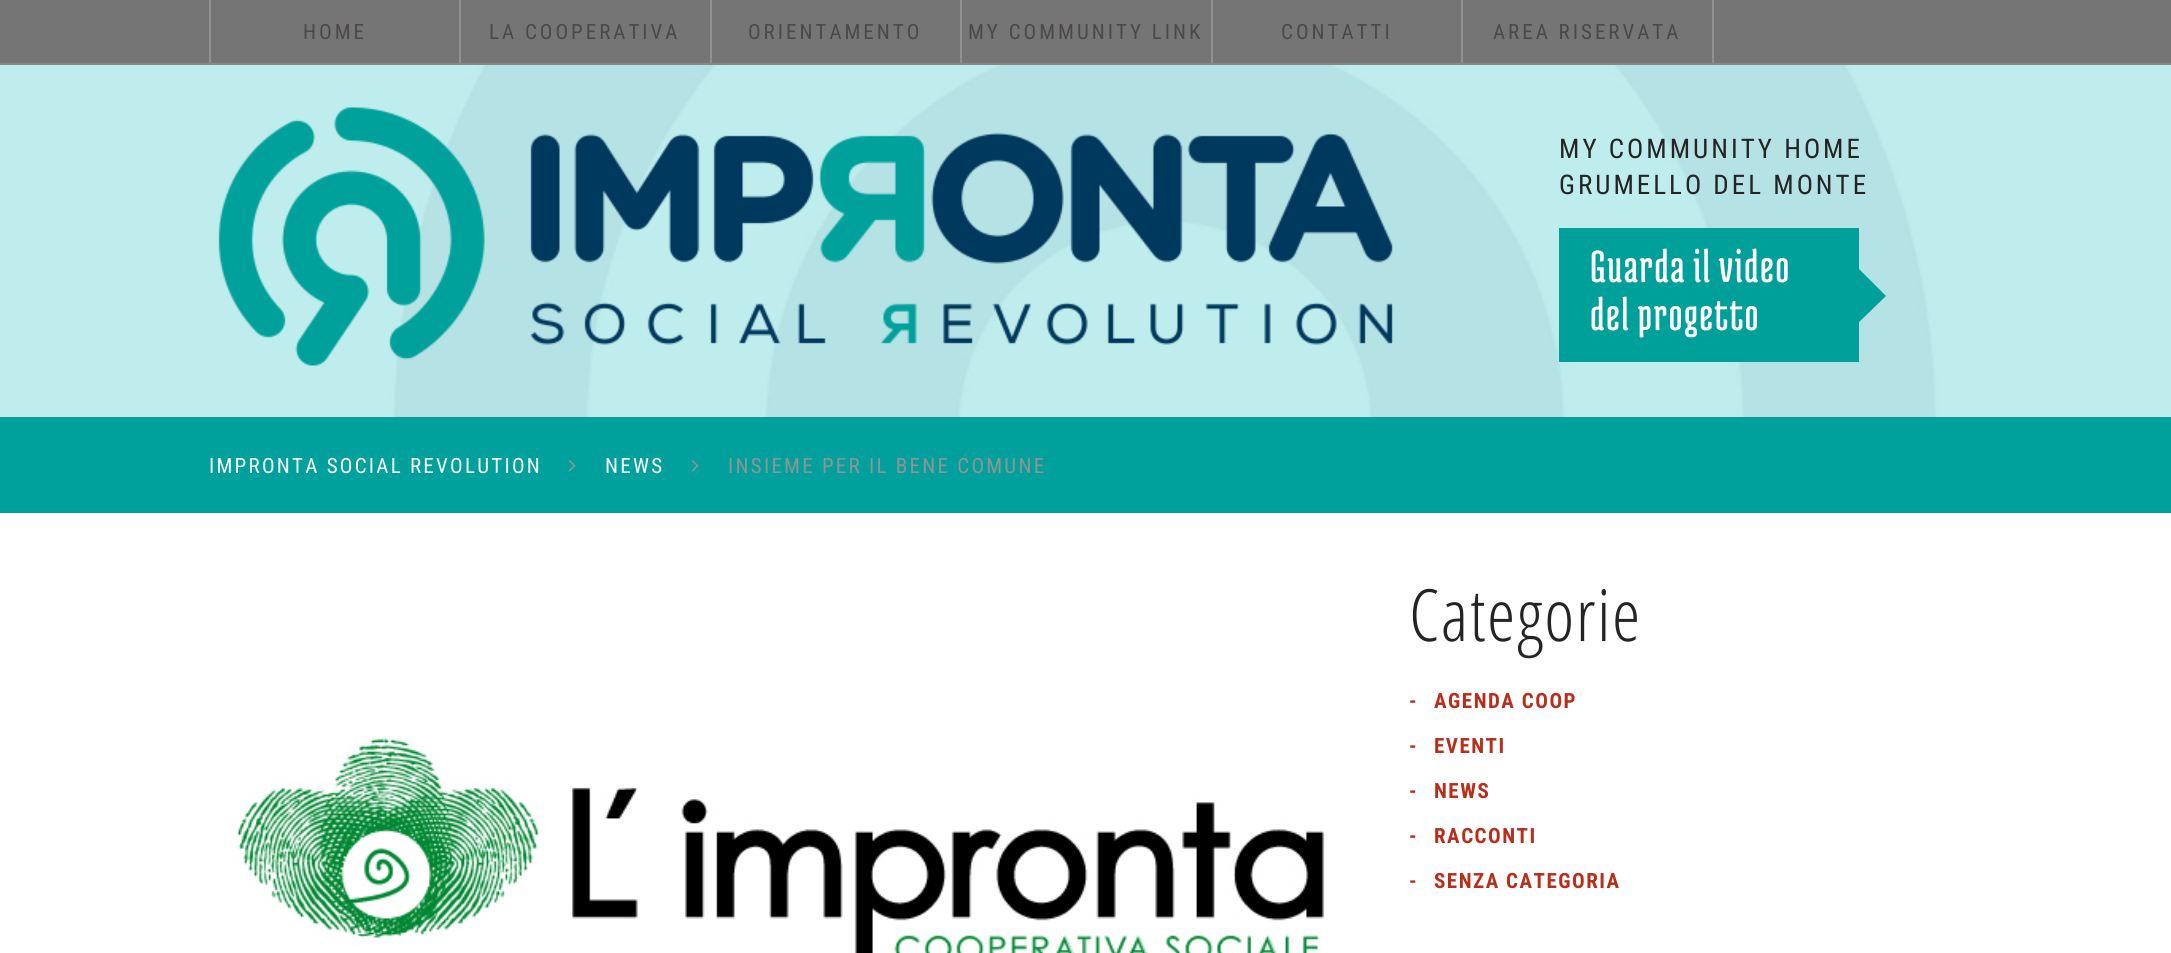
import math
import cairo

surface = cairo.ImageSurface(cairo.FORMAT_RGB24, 2171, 953)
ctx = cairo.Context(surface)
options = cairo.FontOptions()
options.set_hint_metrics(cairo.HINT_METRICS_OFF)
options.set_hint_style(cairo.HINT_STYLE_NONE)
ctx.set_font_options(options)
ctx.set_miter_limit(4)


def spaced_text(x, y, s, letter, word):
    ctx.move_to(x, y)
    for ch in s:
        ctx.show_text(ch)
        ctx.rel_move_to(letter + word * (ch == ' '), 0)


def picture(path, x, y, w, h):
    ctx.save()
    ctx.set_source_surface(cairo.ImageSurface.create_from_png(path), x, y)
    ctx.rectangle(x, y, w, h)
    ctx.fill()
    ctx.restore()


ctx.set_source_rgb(1, 1, 1)
ctx.paint()
picture("img1.png", 0, 65, 2171, 352)
ctx.set_source_rgb(0.459, 0.459, 0.459)
ctx.rectangle(0, 0, 2171, 63)
ctx.fill()
ctx.set_source_rgb(0.529, 0.529, 0.529)
ctx.rectangle(0, 63, 2171, 2)
ctx.fill()
ctx.set_source_rgb(0.569, 0.569, 0.569)
ctx.rectangle(1712, 0, 2, 63)
ctx.fill()
ctx.rectangle(209, 0, 2, 63)
ctx.fill()
ctx.select_font_face("Roboto Condensed")
ctx.set_font_size(21)
ctx.set_source_rgb(0.302, 0.282, 0.282)
spaced_text(303, 39, "HOME", 3, 0)
ctx.set_source_rgb(0.569, 0.569, 0.569)
ctx.rectangle(459, 0, 2, 63)
ctx.fill()
ctx.set_source_rgb(0.302, 0.282, 0.282)
spaced_text(489, 39, "LA COOPERATIVA", 3, 0)
ctx.set_source_rgb(0.569, 0.569, 0.569)
ctx.rectangle(710, 0, 2, 63)
ctx.fill()
ctx.set_source_rgb(0.302, 0.282, 0.282)
spaced_text(748, 39, "ORIENTAMENTO", 3, 0)
ctx.set_source_rgb(0.569, 0.569, 0.569)
ctx.rectangle(960, 0, 2, 63)
ctx.fill()
ctx.set_source_rgb(0.302, 0.282, 0.282)
spaced_text(968, 39, "MY COMMUNITY LINK", 3, 0)
ctx.set_source_rgb(0.569, 0.569, 0.569)
ctx.rectangle(1211, 0, 2, 63)
ctx.fill()
ctx.set_source_rgb(0.302, 0.282, 0.282)
spaced_text(1281, 39, "CONTATTI", 3, 0)
ctx.set_source_rgb(0.569, 0.569, 0.569)
ctx.rectangle(1461, 0, 2, 63)
ctx.fill()
ctx.set_source_rgb(0.302, 0.282, 0.282)
spaced_text(1493, 39, "AREA RISERVATA", 3, 0)
picture("img2.png", 218, 107, 1175, 259)
ctx.set_font_size(27)
ctx.set_source_rgb(0.141, 0.141, 0.141)
spaced_text(1559, 158, "MY COMMUNITY HOME", 3, 0)
spaced_text(1559, 194, "GRUMELLO DEL MONTE", 3, 0)
ctx.set_source_rgb(0, 0.627, 0.604)
ctx.rectangle(1559, 228, 300, 134)
ctx.fill()
ctx.select_font_face("Medula One")
ctx.set_font_size(48)
ctx.set_source_rgb(1, 1, 1)
spaced_text(1590, 282, "Guarda il video", 1.5, 0)
ctx.set_source_rgb(0, 0.627, 0.604)
ctx.new_path()
ctx.move_to(1857, 324)
ctx.line_to(1857, 267)
ctx.line_to(1886, 296)
ctx.close_path()
ctx.fill()
ctx.set_source_rgb(1, 1, 1)
spaced_text(1590, 330, "del progetto", 1.5, 0)
ctx.set_source_rgb(0, 0.631, 0.612)
ctx.rectangle(0, 417, 209, 96)
ctx.fill()
ctx.rectangle(209, 417, 1962, 96)
ctx.fill()
ctx.select_font_face("Roboto Condensed")
ctx.set_font_size(21)
ctx.set_source_rgb(1, 1, 1)
spaced_text(209, 473, "IMPRONTA SOCIAL REVOLUTION", 2.25, 0)
picture("img3.png", 568, 460, 8, 12)
spaced_text(605, 473, "NEWS", 2.25, 0)
picture("img3.png", 691, 460, 8, 12)
ctx.set_source_rgb(0.576, 0.576, 0.576)
spaced_text(728, 473, "INSIEME PER IL BENE COMUNE", 2.25, 0)
picture("img4.png", 236, 738, 1089, 215)
ctx.select_font_face("Open Sans Condensed Light")
ctx.set_font_size(72)
ctx.set_source_rgb(0.141, 0.141, 0.141)
spaced_text(1409, 641, "Categorie", 1.5, 0)
ctx.select_font_face("Roboto Condensed", cairo.FONT_SLANT_NORMAL, cairo.FONT_WEIGHT_BOLD)
ctx.set_font_size(21)
ctx.set_source_rgb(0.722, 0.18, 0.102)
spaced_text(1409, 708, "-", 1.5, 0)
spaced_text(1434, 708, "AGENDA COOP", 1.5, 0)
spaced_text(1409, 753, "-", 1.5, 0)
spaced_text(1434, 753, "EVENTI", 1.5, 0)
spaced_text(1409, 798, "-", 1.5, 0)
spaced_text(1434, 798, "NEWS", 1.5, 0)
spaced_text(1409, 843, "-", 1.5, 0)
spaced_text(1434, 843, "RACCONTI", 1.5, 0)
spaced_text(1409, 888, "-", 1.5, 0)
spaced_text(1434, 888, "SENZA CATEGORIA", 1.5, 0)
surface.write_to_png("page.png")
